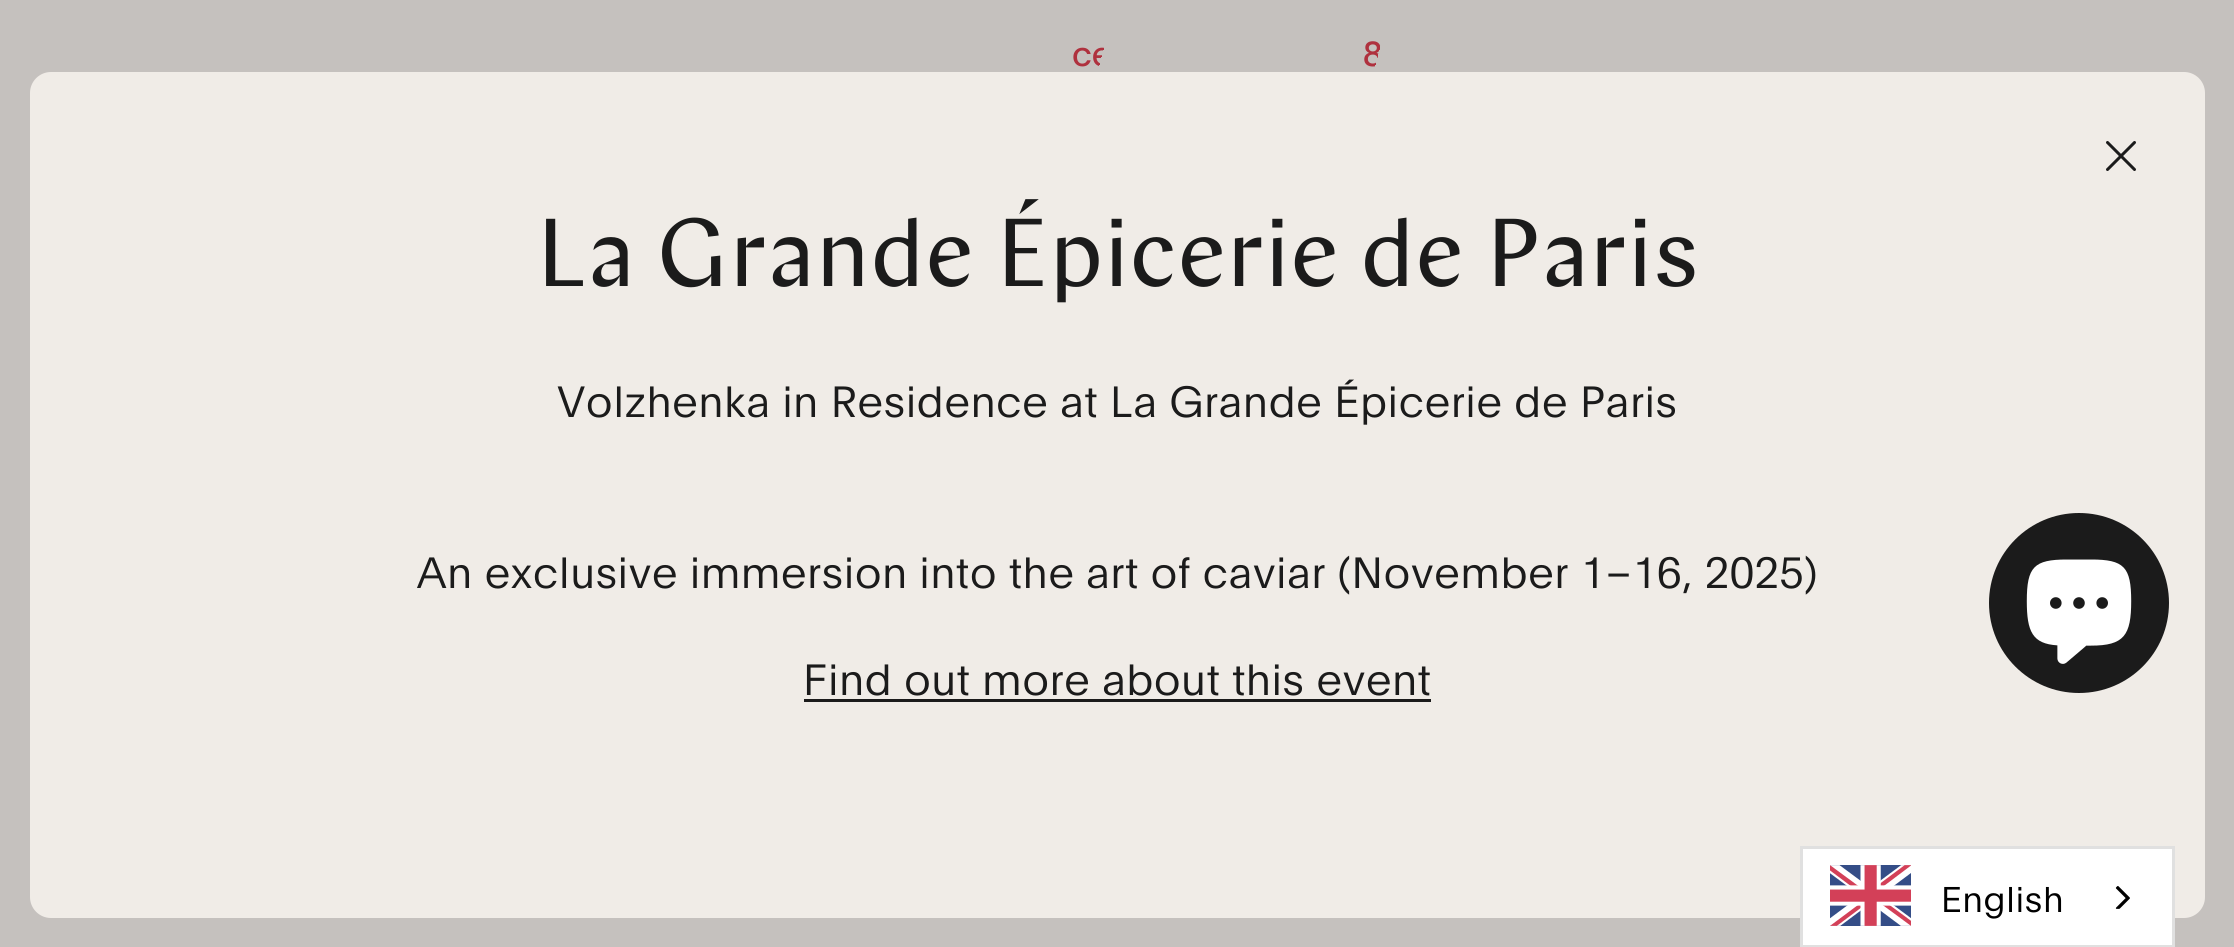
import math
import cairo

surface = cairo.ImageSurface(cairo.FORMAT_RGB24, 2234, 947)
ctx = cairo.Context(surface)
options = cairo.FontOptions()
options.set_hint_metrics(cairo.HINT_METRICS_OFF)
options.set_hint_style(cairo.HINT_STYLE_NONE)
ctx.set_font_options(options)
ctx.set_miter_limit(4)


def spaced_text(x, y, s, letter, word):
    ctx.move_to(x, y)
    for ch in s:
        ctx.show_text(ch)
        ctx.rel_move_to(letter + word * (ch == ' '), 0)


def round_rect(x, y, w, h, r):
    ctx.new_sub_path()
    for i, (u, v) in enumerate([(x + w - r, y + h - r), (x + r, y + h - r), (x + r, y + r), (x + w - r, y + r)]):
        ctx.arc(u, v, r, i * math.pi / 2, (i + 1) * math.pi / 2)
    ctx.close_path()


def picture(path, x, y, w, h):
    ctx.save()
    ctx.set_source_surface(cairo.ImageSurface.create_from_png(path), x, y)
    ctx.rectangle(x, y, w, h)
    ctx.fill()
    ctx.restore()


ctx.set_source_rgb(0.773, 0.757, 0.745)
ctx.paint()
ctx.select_font_face("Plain")
ctx.set_font_size(34)
gradient = cairo.LinearGradient(1123, 91, 838, 14)
gradient.add_color_stop_rgba(0, 0.773, 0.757, 0.745, 1)
gradient.add_color_stop_rgba(0.1, 0.773, 0.757, 0.745, 1)
gradient.add_color_stop_rgba(0.1, 0.686, 0.192, 0.243, 1)
gradient.add_color_stop_rgba(0.2, 0.686, 0.192, 0.243, 1)
gradient.add_color_stop_rgba(0.2, 0.773, 0.757, 0.745, 1)
gradient.add_color_stop_rgba(1, 0.773, 0.757, 0.745, 1)
ctx.set_source(gradient)
ctx.move_to(1072, 66)
ctx.show_text("ce")
gradient = cairo.LinearGradient(1398, 88, 1131, 17)
gradient.add_color_stop_rgba(0, 0.773, 0.757, 0.745, 1)
gradient.add_color_stop_rgba(0.1, 0.773, 0.757, 0.745, 1)
gradient.add_color_stop_rgba(0.1, 0.686, 0.192, 0.243, 1)
gradient.add_color_stop_rgba(0.2, 0.686, 0.192, 0.243, 1)
gradient.add_color_stop_rgba(0.2, 0.773, 0.757, 0.745, 1)
gradient.add_color_stop_rgba(1, 0.773, 0.757, 0.745, 1)
ctx.set_source(gradient)
ctx.move_to(1363, 66)
ctx.show_text("8")
ctx.set_source_rgb(0.941, 0.922, 0.906)
round_rect(30, 72, 2175, 846, 21)
ctx.fill()
ctx.new_path()
ctx.move_to(2134.5, 142.5)
ctx.line_to(2107.5, 169.5)
ctx.move_to(2134.5, 169.5)
ctx.line_to(2107.5, 142.5)
ctx.set_source_rgb(0.106, 0.106, 0.106)
ctx.set_line_width(3)
ctx.set_line_cap(cairo.LINE_CAP_ROUND)
ctx.set_line_join(cairo.LINE_JOIN_ROUND)
ctx.stroke()
ctx.select_font_face("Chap")
ctx.set_font_size(96)
spaced_text(536, 286, "La Grande Épicerie de Paris", 0.85, 0)
ctx.select_font_face("Plain Light")
ctx.set_font_size(42.75)
spaced_text(557, 417, "Volzhenka in Residence at La Grande Épicerie de Paris", 0.85, 0)
spaced_text(417, 588, "An exclusive immersion into the art of caviar (November 1–16, 2025)", 0.85, 0)
spaced_text(803, 695, "Find out more about this event", 0.85, 0)
ctx.rectangle(804, 699, 627, 3)
ctx.fill()
ctx.arc(2079, 603, 90, 0, 2 * math.pi)
ctx.fill()
picture("img1.png", 2026, 559, 106, 105)
ctx.set_source_rgb(1, 1, 1)
ctx.rectangle(1801.5, 847.5, 372, 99)
ctx.fill_preserve()
ctx.set_source_rgb(0.878, 0.878, 0.878)
ctx.set_line_cap(cairo.LINE_CAP_BUTT)
ctx.set_line_join(cairo.LINE_JOIN_MITER)
ctx.stroke()
picture("img2.png", 1830, 865, 81, 61)
ctx.set_font_size(35)
ctx.set_source_rgb(0, 0, 0)
spaced_text(1941, 912, "English", 0.85, 0)
picture("img3.png", 2115, 886, 15, 23)
surface.write_to_png("page.png")
